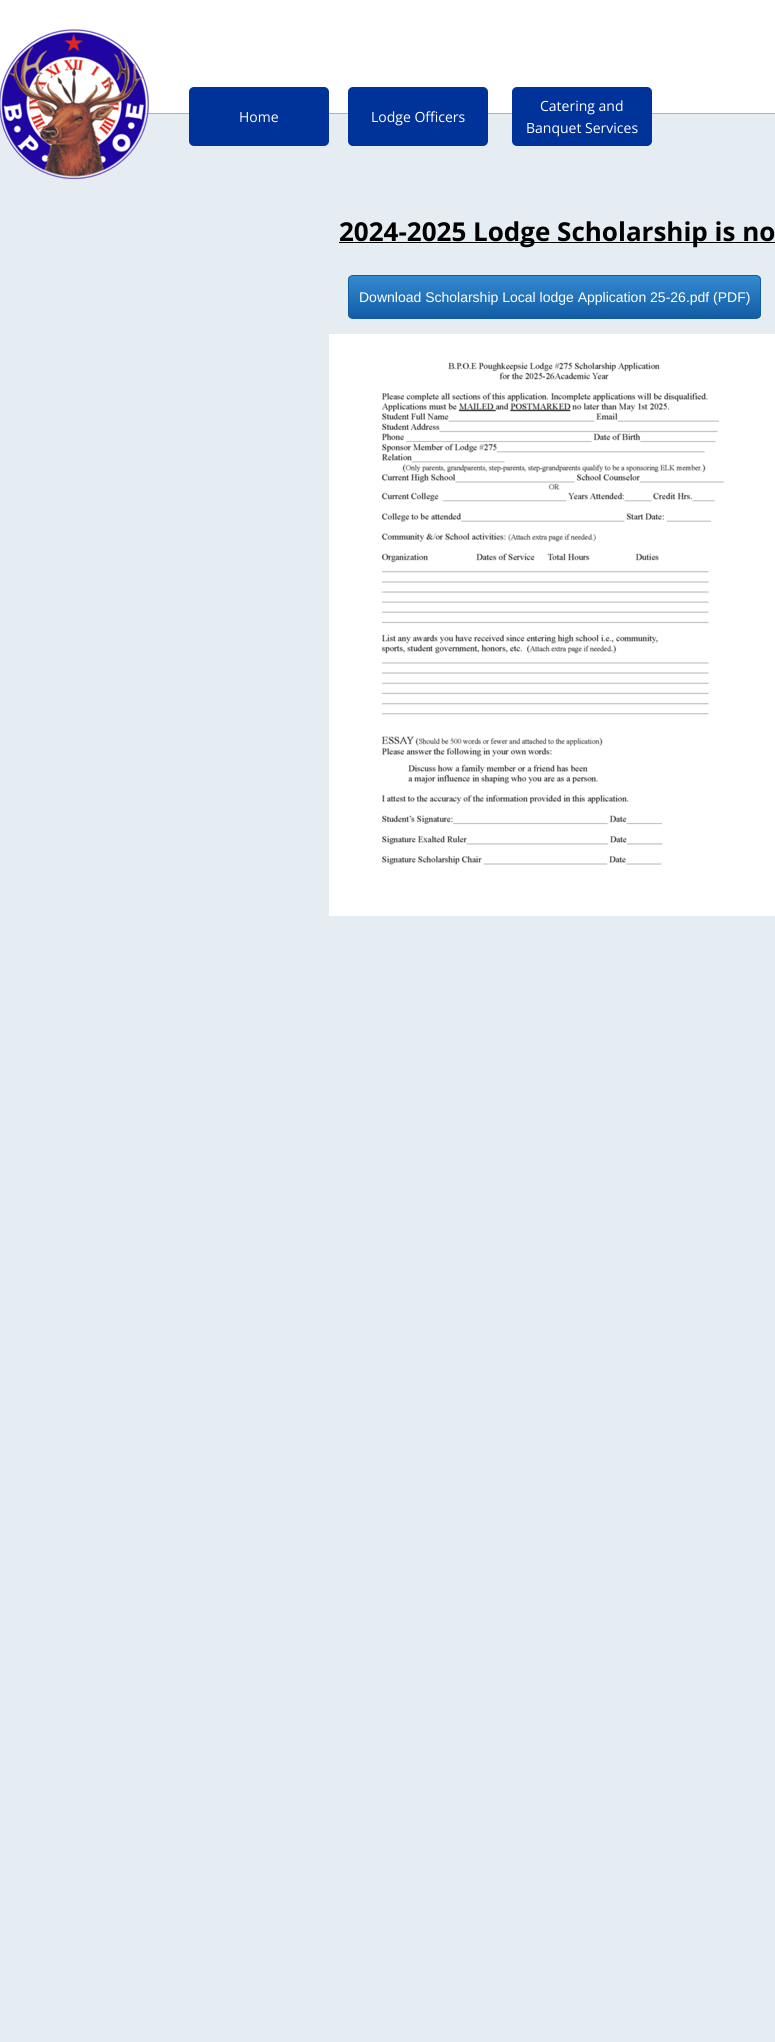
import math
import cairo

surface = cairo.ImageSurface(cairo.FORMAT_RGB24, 775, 2042)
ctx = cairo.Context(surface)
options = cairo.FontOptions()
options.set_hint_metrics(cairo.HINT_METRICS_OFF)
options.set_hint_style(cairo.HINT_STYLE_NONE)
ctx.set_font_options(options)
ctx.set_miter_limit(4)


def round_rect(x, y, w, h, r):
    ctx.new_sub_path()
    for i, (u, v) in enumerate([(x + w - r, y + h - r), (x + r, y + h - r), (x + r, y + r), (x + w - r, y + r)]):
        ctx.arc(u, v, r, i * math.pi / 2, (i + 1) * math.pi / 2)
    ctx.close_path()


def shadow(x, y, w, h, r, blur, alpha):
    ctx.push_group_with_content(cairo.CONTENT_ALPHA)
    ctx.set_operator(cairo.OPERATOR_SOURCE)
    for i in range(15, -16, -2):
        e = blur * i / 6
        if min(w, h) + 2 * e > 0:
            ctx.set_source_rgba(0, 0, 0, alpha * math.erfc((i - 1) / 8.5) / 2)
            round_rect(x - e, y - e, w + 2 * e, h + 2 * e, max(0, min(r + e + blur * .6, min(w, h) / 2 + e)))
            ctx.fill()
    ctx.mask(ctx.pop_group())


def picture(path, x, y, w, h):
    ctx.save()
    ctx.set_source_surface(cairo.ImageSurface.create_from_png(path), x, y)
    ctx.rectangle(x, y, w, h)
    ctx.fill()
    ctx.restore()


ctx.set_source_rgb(1, 1, 1)
ctx.paint()
ctx.set_source_rgb(0.898, 0.929, 0.949)
ctx.rectangle(-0.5, 113.5, 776, 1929)
ctx.fill_preserve()
ctx.set_source_rgb(0.663, 0.706, 0.733)
ctx.set_line_width(1)
ctx.stroke()
picture("img1.png", 0, 29, 149, 150)
ctx.save()
round_rect(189, 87, 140, 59, 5)
ctx.clip()
ctx.set_source_rgb(0, 0, 0)
shadow(199, 134, 70, 12, 0, 5, 0.7)
shadow(249, 134, 70, 12, 0, 5, 0.7)
ctx.restore()
ctx.set_source_rgb(0, 0.2, 0.6)
round_rect(189, 87, 140, 59, 5)
ctx.fill()
ctx.select_font_face("Open Sans")
ctx.set_font_size(14)
ctx.set_source_rgb(1, 1, 1)
ctx.move_to(239, 122)
ctx.show_text("Home")
ctx.set_source_rgb(0, 0.2, 0.6)
round_rect(348, 87, 140, 59, 5)
ctx.fill()
ctx.set_source_rgb(1, 1, 1)
ctx.move_to(371, 122)
ctx.show_text("Lodge Officers")
ctx.set_source_rgb(0, 0.2, 0.6)
round_rect(512, 87, 140, 59, 5)
ctx.fill()
ctx.set_source_rgb(1, 1, 1)
ctx.move_to(540, 111)
ctx.show_text("Catering and")
ctx.move_to(526, 133)
ctx.show_text("Banquet Services")
ctx.set_source_rgb(0, 0, 0)
ctx.rectangle(339, 242, 436, 1)
ctx.fill()
ctx.select_font_face("Open Sans", cairo.FONT_SLANT_NORMAL, cairo.FONT_WEIGHT_BOLD)
ctx.set_font_size(26)
ctx.move_to(339, 241)
ctx.show_text("2024-2025 Lodge Scholarship is no")
ctx.save()
round_rect(348, 275, 413, 44, 5)
ctx.clip()
gradient = cairo.LinearGradient(555, 276, 555, 318)
gradient.add_color_stop_rgba(0, 0.204, 0.545, 0.812, 1)
gradient.add_color_stop_rgba(1, 0.071, 0.361, 0.651, 1)
ctx.set_source(gradient)
ctx.rectangle(348, 276, 413, 42)
ctx.fill()
ctx.restore()
round_rect(348.5, 275.5, 412, 43, 4.5)
ctx.set_source_rgb(0.071, 0.361, 0.651)
ctx.stroke()
ctx.select_font_face("Liberation Sans")
ctx.set_font_size(14)
ctx.set_source_rgb(1, 1, 1)
ctx.move_to(359, 302)
ctx.show_text("Download Scholarship Local lodge Application 25-26.pdf (PDF)")
picture("img2.png", 329, 334, 446, 582)
surface.write_to_png("page.png")
